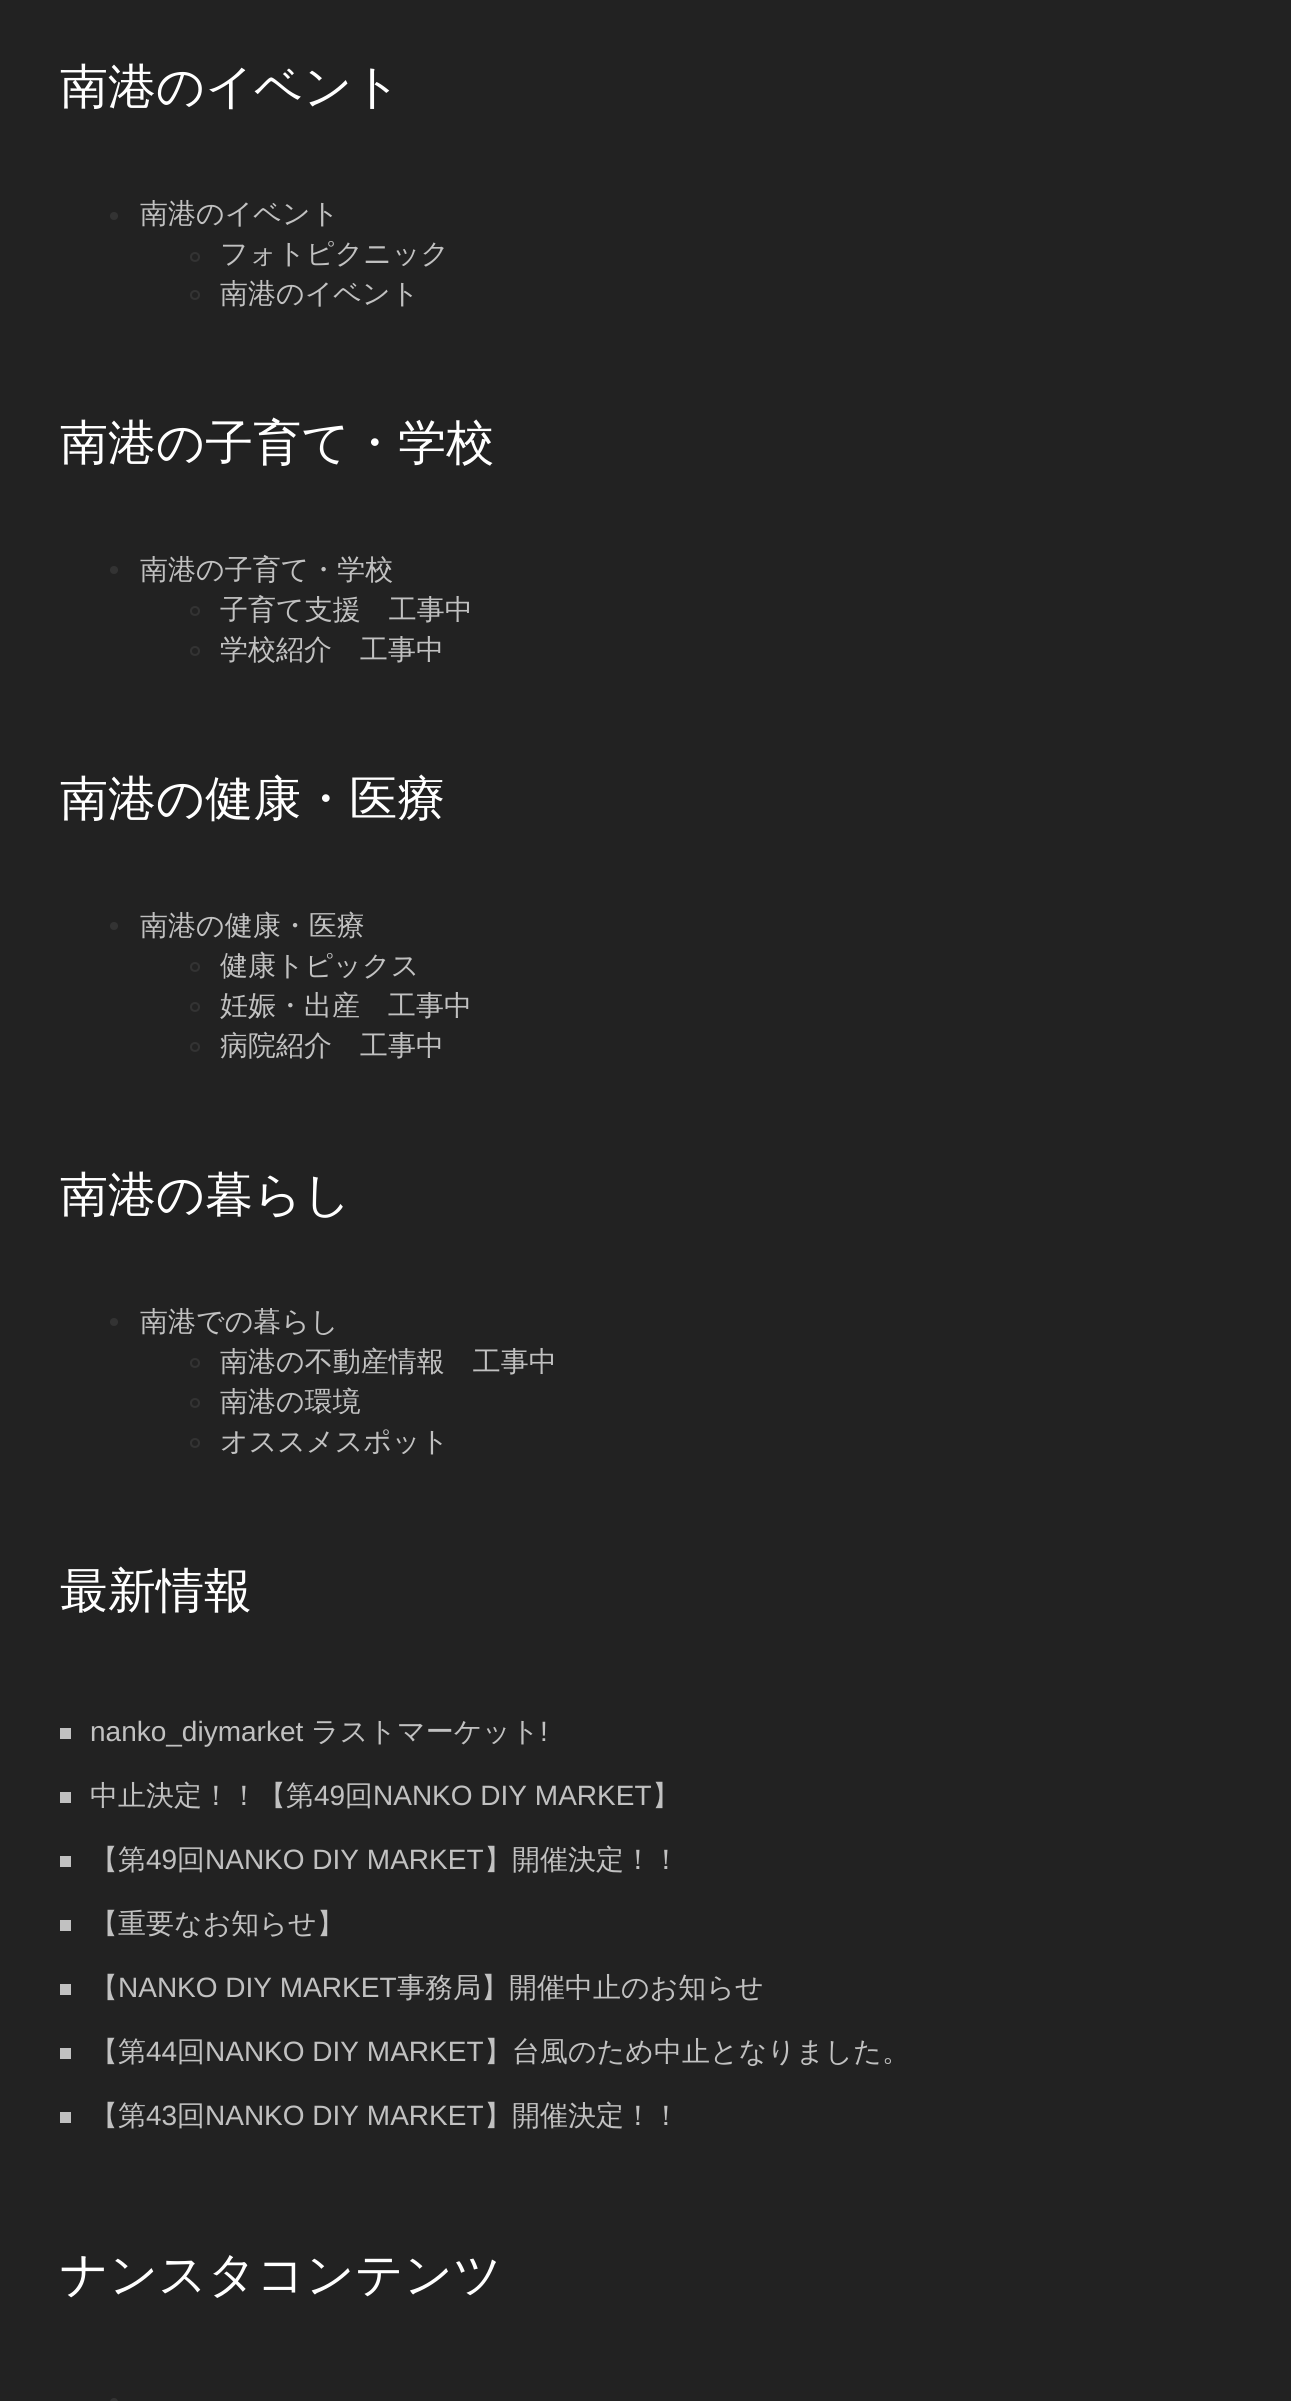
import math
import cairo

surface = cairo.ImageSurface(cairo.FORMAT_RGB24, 1291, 2401)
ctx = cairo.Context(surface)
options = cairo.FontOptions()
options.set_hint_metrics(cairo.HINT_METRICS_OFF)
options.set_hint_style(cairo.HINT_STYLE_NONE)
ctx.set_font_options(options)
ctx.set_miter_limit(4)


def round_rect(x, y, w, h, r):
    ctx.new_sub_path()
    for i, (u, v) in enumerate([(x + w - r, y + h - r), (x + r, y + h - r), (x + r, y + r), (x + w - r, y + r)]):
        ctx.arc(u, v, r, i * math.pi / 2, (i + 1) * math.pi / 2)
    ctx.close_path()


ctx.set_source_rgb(0.133, 0.133, 0.133)
ctx.paint()
ctx.select_font_face("WenQuanYi Zen Hei Medium")
ctx.set_font_size(48)
ctx.set_source_rgb(1, 1, 1)
ctx.move_to(60, 103)
ctx.show_text("南港のイベント")
ctx.set_source_rgb(0.2, 0.2, 0.2)
ctx.new_path()
ctx.arc(114, 216, 4, 0, 2 * math.pi)
ctx.fill()
ctx.set_font_size(28)
ctx.set_source_rgb(0.757, 0.757, 0.757)
ctx.move_to(140, 223)
ctx.show_text("南港のイベント")
ctx.new_path()
ctx.arc(195, 257, 4, 0, 2 * math.pi)
ctx.set_source_rgb(0.2, 0.2, 0.2)
ctx.stroke()
ctx.set_source_rgb(0.757, 0.757, 0.757)
ctx.move_to(220, 263)
ctx.show_text("フォトピクニック")
ctx.new_path()
ctx.arc(195, 295, 4, 0, 2 * math.pi)
ctx.set_source_rgb(0.2, 0.2, 0.2)
ctx.stroke()
ctx.set_source_rgb(0.757, 0.757, 0.757)
ctx.move_to(220, 303)
ctx.show_text("南港のイベント")
ctx.set_font_size(48)
ctx.set_source_rgb(1, 1, 1)
ctx.move_to(60, 459)
ctx.show_text("南港の子育て・学校")
ctx.set_source_rgb(0.2, 0.2, 0.2)
ctx.new_path()
ctx.arc(114, 570, 4, 0, 2 * math.pi)
ctx.fill()
ctx.set_font_size(28)
ctx.set_source_rgb(0.757, 0.757, 0.757)
ctx.move_to(140, 579)
ctx.show_text("南港の子育て・学校")
ctx.new_path()
ctx.arc(195, 611, 4, 0, 2 * math.pi)
ctx.set_source_rgb(0.2, 0.2, 0.2)
ctx.stroke()
ctx.set_source_rgb(0.757, 0.757, 0.757)
ctx.move_to(220, 619)
ctx.show_text("子育て支援　工事中")
ctx.new_path()
ctx.arc(195, 651, 4, 0, 2 * math.pi)
ctx.set_source_rgb(0.2, 0.2, 0.2)
ctx.stroke()
ctx.set_source_rgb(0.757, 0.757, 0.757)
ctx.move_to(220, 659)
ctx.show_text("学校紹介　工事中")
ctx.set_font_size(48)
ctx.set_source_rgb(1, 1, 1)
ctx.move_to(60, 815)
ctx.show_text("南港の健康・医療")
ctx.set_source_rgb(0.2, 0.2, 0.2)
ctx.new_path()
ctx.arc(114, 926, 4, 0, 2 * math.pi)
ctx.fill()
ctx.set_font_size(28)
ctx.set_source_rgb(0.757, 0.757, 0.757)
ctx.move_to(140, 935)
ctx.show_text("南港の健康・医療")
ctx.new_path()
ctx.arc(195, 967, 4, 0, 2 * math.pi)
ctx.set_source_rgb(0.2, 0.2, 0.2)
ctx.stroke()
ctx.set_source_rgb(0.757, 0.757, 0.757)
ctx.move_to(220, 975)
ctx.show_text("健康トピックス")
ctx.new_path()
ctx.arc(195, 1007, 4, 0, 2 * math.pi)
ctx.set_source_rgb(0.2, 0.2, 0.2)
ctx.stroke()
ctx.set_source_rgb(0.757, 0.757, 0.757)
ctx.move_to(220, 1015)
ctx.show_text("妊娠・出産　工事中")
ctx.new_path()
ctx.arc(195, 1047, 4, 0, 2 * math.pi)
ctx.set_source_rgb(0.2, 0.2, 0.2)
ctx.stroke()
ctx.set_source_rgb(0.757, 0.757, 0.757)
ctx.move_to(220, 1055)
ctx.show_text("病院紹介　工事中")
ctx.set_font_size(48)
ctx.set_source_rgb(1, 1, 1)
ctx.move_to(60, 1211)
ctx.show_text("南港の暮らし")
ctx.set_source_rgb(0.2, 0.2, 0.2)
ctx.new_path()
ctx.arc(114, 1322, 4, 0, 2 * math.pi)
ctx.fill()
ctx.set_font_size(28)
ctx.set_source_rgb(0.757, 0.757, 0.757)
ctx.move_to(140, 1331)
ctx.show_text("南港での暮らし")
ctx.new_path()
ctx.arc(195, 1363, 4, 0, 2 * math.pi)
ctx.set_source_rgb(0.2, 0.2, 0.2)
ctx.stroke()
ctx.set_source_rgb(0.757, 0.757, 0.757)
ctx.move_to(220, 1371)
ctx.show_text("南港の不動産情報　工事中")
ctx.new_path()
ctx.arc(195, 1403, 4, 0, 2 * math.pi)
ctx.set_source_rgb(0.2, 0.2, 0.2)
ctx.stroke()
ctx.set_source_rgb(0.757, 0.757, 0.757)
ctx.move_to(220, 1411)
ctx.show_text("南港の環境")
ctx.new_path()
ctx.arc(195, 1443, 4, 0, 2 * math.pi)
ctx.set_source_rgb(0.2, 0.2, 0.2)
ctx.stroke()
ctx.set_source_rgb(0.757, 0.757, 0.757)
ctx.move_to(220, 1451)
ctx.show_text("オススメスポット")
ctx.set_font_size(48)
ctx.set_source_rgb(1, 1, 1)
ctx.move_to(60, 1607)
ctx.show_text("最新情報")
ctx.select_font_face("Liberation Sans")
ctx.set_font_size(28)
ctx.set_source_rgb(0.757, 0.757, 0.757)
ctx.move_to(90, 1741)
ctx.show_text("nanko_diymarket")
ctx.rectangle(60, 1728, 11, 11)
ctx.fill()
ctx.select_font_face("WenQuanYi Zen Hei Medium")
ctx.move_to(311, 1741)
ctx.show_text("ラストマーケット")
ctx.select_font_face("Liberation Sans")
ctx.move_to(540, 1741)
ctx.show_text("!")
ctx.select_font_face("WenQuanYi Zen Hei Medium")
ctx.move_to(90, 1805)
ctx.show_text("中止決定！！【第")
ctx.rectangle(60, 1792, 11, 11)
ctx.fill()
ctx.select_font_face("Liberation Sans")
ctx.move_to(314, 1805)
ctx.show_text("49")
ctx.select_font_face("WenQuanYi Zen Hei Medium")
ctx.move_to(345, 1805)
ctx.show_text("回")
ctx.select_font_face("Liberation Sans")
ctx.move_to(373, 1805)
ctx.show_text("NANKO DIY MARKET")
ctx.select_font_face("WenQuanYi Zen Hei Medium")
ctx.move_to(652, 1805)
ctx.show_text("】")
ctx.move_to(90, 1869)
ctx.show_text("【第")
ctx.rectangle(60, 1856, 11, 11)
ctx.fill()
ctx.select_font_face("Liberation Sans")
ctx.move_to(146, 1869)
ctx.show_text("49")
ctx.select_font_face("WenQuanYi Zen Hei Medium")
ctx.move_to(177, 1869)
ctx.show_text("回")
ctx.select_font_face("Liberation Sans")
ctx.move_to(205, 1869)
ctx.show_text("NANKO DIY MARKET")
ctx.select_font_face("WenQuanYi Zen Hei Medium")
ctx.move_to(484, 1869)
ctx.show_text("】開催決定！！")
ctx.move_to(90, 1933)
ctx.show_text("【重要なお知らせ】")
ctx.rectangle(60, 1920, 11, 11)
ctx.fill()
ctx.move_to(90, 1997)
ctx.show_text("【")
ctx.rectangle(60, 1984, 11, 11)
ctx.fill()
ctx.select_font_face("Liberation Sans")
ctx.move_to(118, 1997)
ctx.show_text("NANKO DIY MARKET")
ctx.select_font_face("WenQuanYi Zen Hei Medium")
ctx.move_to(397, 1997)
ctx.show_text("事務局】開催中止のお知らせ")
ctx.move_to(90, 2061)
ctx.show_text("【第")
ctx.rectangle(60, 2048, 11, 11)
ctx.fill()
ctx.select_font_face("Liberation Sans")
ctx.move_to(146, 2061)
ctx.show_text("44")
ctx.select_font_face("WenQuanYi Zen Hei Medium")
ctx.move_to(177, 2061)
ctx.show_text("回")
ctx.select_font_face("Liberation Sans")
ctx.move_to(205, 2061)
ctx.show_text("NANKO DIY MARKET")
ctx.select_font_face("WenQuanYi Zen Hei Medium")
ctx.move_to(484, 2061)
ctx.show_text("】台風のため中止となりました。")
ctx.move_to(90, 2125)
ctx.show_text("【第")
ctx.rectangle(60, 2112, 11, 11)
ctx.fill()
ctx.select_font_face("Liberation Sans")
ctx.move_to(146, 2125)
ctx.show_text("43")
ctx.select_font_face("WenQuanYi Zen Hei Medium")
ctx.move_to(177, 2125)
ctx.show_text("回")
ctx.select_font_face("Liberation Sans")
ctx.move_to(205, 2125)
ctx.show_text("NANKO DIY MARKET")
ctx.select_font_face("WenQuanYi Zen Hei Medium")
ctx.move_to(484, 2125)
ctx.show_text("】開催決定！！")
ctx.set_font_size(48)
ctx.set_source_rgb(1, 1, 1)
ctx.move_to(60, 2291)
ctx.show_text("ナンスタコンテンツ")
ctx.set_source_rgb(0.2, 0.2, 0.2)
round_rect(110, 2398, 8, 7, 4)
ctx.fill()
surface.write_to_png("page.png")
